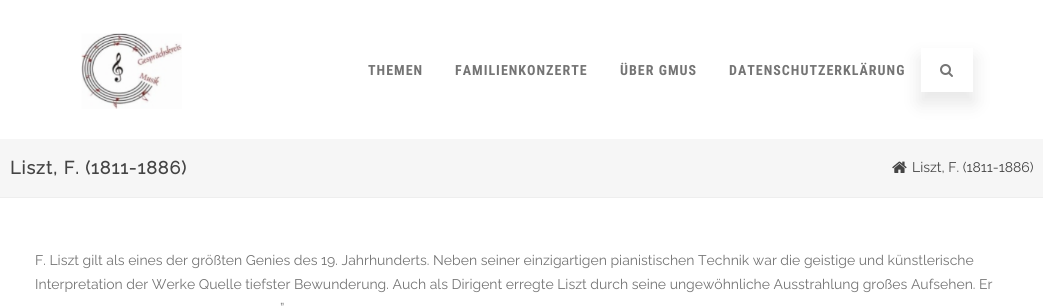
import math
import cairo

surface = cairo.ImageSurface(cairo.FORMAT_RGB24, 1043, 307)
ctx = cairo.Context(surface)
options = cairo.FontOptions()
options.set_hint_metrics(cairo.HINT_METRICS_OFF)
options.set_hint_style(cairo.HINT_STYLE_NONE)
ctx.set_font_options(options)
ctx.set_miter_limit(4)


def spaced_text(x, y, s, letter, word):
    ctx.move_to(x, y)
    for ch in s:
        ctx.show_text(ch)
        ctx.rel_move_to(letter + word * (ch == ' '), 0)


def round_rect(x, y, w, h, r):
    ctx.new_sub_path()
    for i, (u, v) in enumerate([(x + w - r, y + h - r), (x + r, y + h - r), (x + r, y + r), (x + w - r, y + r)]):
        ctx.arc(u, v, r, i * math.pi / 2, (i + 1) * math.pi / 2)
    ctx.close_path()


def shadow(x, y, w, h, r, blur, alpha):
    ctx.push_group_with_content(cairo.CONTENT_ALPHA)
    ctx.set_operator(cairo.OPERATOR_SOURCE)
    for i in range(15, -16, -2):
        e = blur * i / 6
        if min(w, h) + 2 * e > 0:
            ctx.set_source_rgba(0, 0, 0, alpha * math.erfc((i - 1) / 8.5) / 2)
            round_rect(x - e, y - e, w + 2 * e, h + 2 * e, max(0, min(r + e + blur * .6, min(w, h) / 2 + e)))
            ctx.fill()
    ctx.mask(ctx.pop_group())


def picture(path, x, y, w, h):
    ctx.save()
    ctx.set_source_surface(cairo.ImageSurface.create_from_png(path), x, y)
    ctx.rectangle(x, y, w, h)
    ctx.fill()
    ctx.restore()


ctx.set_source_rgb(1, 1, 1)
ctx.paint()
picture("img1.png", 81, 33, 101, 76)
ctx.select_font_face("Roboto Condensed", cairo.FONT_SLANT_NORMAL, cairo.FONT_WEIGHT_BOLD)
ctx.set_font_size(14)
ctx.set_source_rgb(0.455, 0.455, 0.455)
spaced_text(368, 75, "THEMEN", 1, 0)
spaced_text(455, 75, "FAMILIENKONZERTE", 1, 0)
spaced_text(620, 75, "ÜBER GMUS", 1, 0)
ctx.save()
ctx.set_fill_rule(cairo.FILL_RULE_EVEN_ODD)
ctx.new_path()
ctx.move_to(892, 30)
ctx.line_to(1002, 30)
ctx.line_to(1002, 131)
ctx.line_to(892, 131)
ctx.close_path()
ctx.move_to(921, 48)
ctx.line_to(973, 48)
ctx.line_to(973, 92)
ctx.line_to(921, 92)
ctx.close_path()
ctx.clip()
ctx.set_source_rgb(0.251, 0.251, 0.251)
shadow(920, 58, 54, 45, 0, 9, 0.13)
ctx.restore()
spaced_text(729, 75, "DATENSCHUTZERKLÄRUNG", 1, 0)
picture("img2.png", 940, 64, 13, 13)
ctx.set_source_rgb(0.961, 0.961, 0.961)
ctx.rectangle(0, 139, 1043, 58)
ctx.fill()
ctx.set_source_rgb(0.933, 0.933, 0.933)
ctx.rectangle(0, 197, 1043, 1)
ctx.fill()
ctx.select_font_face("Raleway", cairo.FONT_SLANT_NORMAL, cairo.FONT_WEIGHT_BOLD)
ctx.set_font_size(18)
ctx.set_source_rgb(0.267, 0.267, 0.267)
spaced_text(10, 174, "Liszt, F. (1811-1886)", 1, 0)
picture("img3.png", 892, 161, 15, 12)
ctx.select_font_face("Raleway")
ctx.set_font_size(14)
ctx.move_to(912, 172)
ctx.show_text("Liszt, F. (1811-1886)")
ctx.set_source_rgb(0.455, 0.455, 0.455)
ctx.move_to(35, 265)
ctx.show_text("F. Liszt gilt als eines der größten Genies des 19. Jahrhunderts. Neben seiner einzigartigen pianistischen Technik war die geistige und künstlerische")
ctx.move_to(35, 289)
ctx.show_text("Interpretation der Werke Quelle tiefster Bewunderung. Auch als Dirigent erregte Liszt durch seine ungewöhnliche Ausstrahlung großes Aufsehen. Er")
ctx.move_to(280, 313)
ctx.show_text("”")
surface.write_to_png("page.png")
